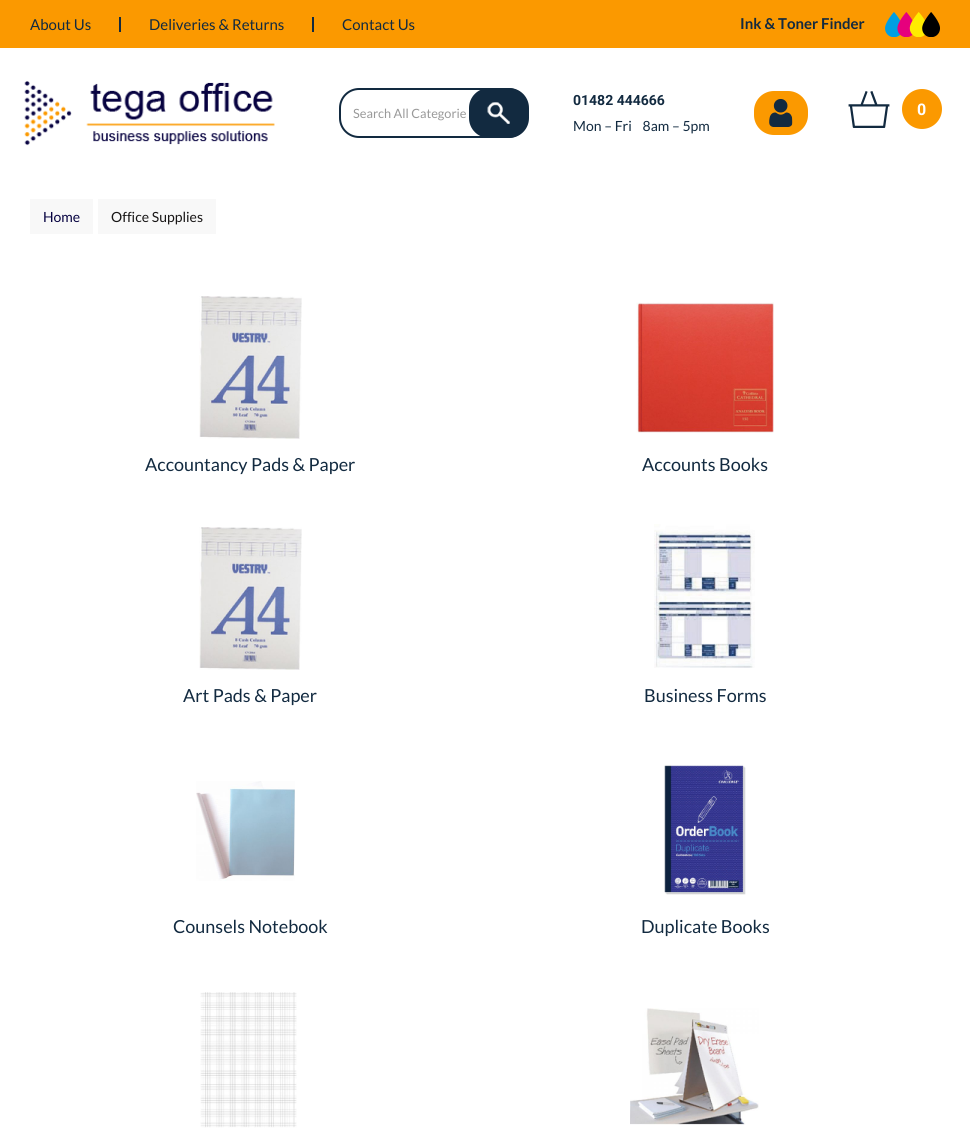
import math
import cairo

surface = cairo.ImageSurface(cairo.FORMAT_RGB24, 970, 1134)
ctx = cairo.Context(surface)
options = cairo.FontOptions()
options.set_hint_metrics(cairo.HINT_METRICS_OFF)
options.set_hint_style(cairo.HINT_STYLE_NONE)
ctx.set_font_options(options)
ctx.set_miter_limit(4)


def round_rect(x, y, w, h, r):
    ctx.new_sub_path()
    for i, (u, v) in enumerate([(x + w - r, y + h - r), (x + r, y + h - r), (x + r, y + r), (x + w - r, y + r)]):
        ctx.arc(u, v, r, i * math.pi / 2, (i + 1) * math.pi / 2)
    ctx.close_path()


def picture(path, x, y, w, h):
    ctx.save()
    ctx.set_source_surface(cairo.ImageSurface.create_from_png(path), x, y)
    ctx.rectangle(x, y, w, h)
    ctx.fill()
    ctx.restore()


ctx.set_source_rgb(1, 1, 1)
ctx.paint()
ctx.set_source_rgb(0.984, 0.6, 0)
ctx.rectangle(0, 0, 970, 48)
ctx.fill()
ctx.select_font_face("Lato")
ctx.set_font_size(15)
ctx.set_source_rgb(0.071, 0.165, 0.251)
ctx.move_to(30, 30)
ctx.show_text("About Us")
ctx.rectangle(119, 17, 2, 15)
ctx.fill()
ctx.move_to(149, 30)
ctx.show_text("Deliveries & Returns")
ctx.rectangle(312, 17, 2, 15)
ctx.fill()
ctx.move_to(342, 30)
ctx.show_text("Contact Us")
ctx.select_font_face("Lato", cairo.FONT_SLANT_NORMAL, cairo.FONT_WEIGHT_BOLD)
ctx.move_to(740, 29)
ctx.show_text("Ink & Toner Finder")
picture("img1.png", 885, 12, 55, 25)
picture("img2.png", 24, 81, 251, 65)
round_rect(340, 89, 187, 48, 19)
ctx.stroke()
ctx.select_font_face("Lato")
ctx.set_font_size(12.75)
ctx.set_source_rgb(0.6, 0.6, 0.6)
ctx.move_to(353, 118)
ctx.show_text("Search All Categorie")
ctx.set_source_rgb(0.071, 0.165, 0.251)
round_rect(469, 88, 60, 50, 20)
ctx.fill()
picture("img3.png", 487, 102, 23, 22)
ctx.select_font_face("Roboto", cairo.FONT_SLANT_NORMAL, cairo.FONT_WEIGHT_BOLD)
ctx.set_font_size(14)
ctx.move_to(573, 105)
ctx.show_text("01482 444666")
ctx.select_font_face("Lato")
ctx.move_to(573, 131)
ctx.show_text("Mon – Fri    8am – 5pm")
ctx.set_source_rgb(0.984, 0.6, 0)
round_rect(754, 91, 54, 44, 20)
ctx.fill()
picture("img4.png", 769, 99, 24, 28)
picture("img5.png", 848, 91, 42, 37)
ctx.arc(922, 109, 20, 0, 2 * math.pi)
ctx.fill()
ctx.select_font_face("Roboto", cairo.FONT_SLANT_NORMAL, cairo.FONT_WEIGHT_BOLD)
ctx.set_font_size(16)
ctx.set_source_rgb(1, 1, 1)
ctx.move_to(917, 115)
ctx.show_text("0")
ctx.set_source_rgb(0.969, 0.969, 0.969)
ctx.rectangle(30, 199, 63, 35)
ctx.fill()
ctx.select_font_face("Lato")
ctx.set_font_size(14)
ctx.set_source_rgb(0.031, 0.012, 0.255)
ctx.move_to(43, 222)
ctx.show_text("Home")
ctx.set_source_rgb(0.969, 0.969, 0.969)
ctx.rectangle(98, 199, 118, 35)
ctx.fill()
ctx.set_source_rgb(0.094, 0.086, 0.086)
ctx.move_to(111, 222)
ctx.show_text("Office Supplies")
picture("img6.png", 199, 296, 103, 143)
ctx.set_font_size(18)
ctx.set_source_rgb(0.071, 0.165, 0.251)
ctx.move_to(145, 471)
ctx.show_text("Accountancy Pads & Paper")
picture("img7.png", 636, 302, 138, 131)
ctx.move_to(642, 471)
ctx.show_text("Accounts Books")
picture("img8.png", 199, 527, 103, 143)
ctx.move_to(183, 702)
ctx.show_text("Art Pads & Paper")
picture("img9.png", 654, 524, 101, 144)
ctx.move_to(644, 702)
ctx.show_text("Business Forms")
picture("img10.png", 196, 781, 99, 100)
ctx.move_to(173, 933)
ctx.show_text("Counsels Notebook")
picture("img11.png", 664, 764, 82, 131)
ctx.move_to(641, 933)
ctx.show_text("Duplicate Books")
picture("img12.png", 200, 992, 97, 136)
picture("img13.png", 630, 1008, 129, 117)
surface.write_to_png("page.png")
